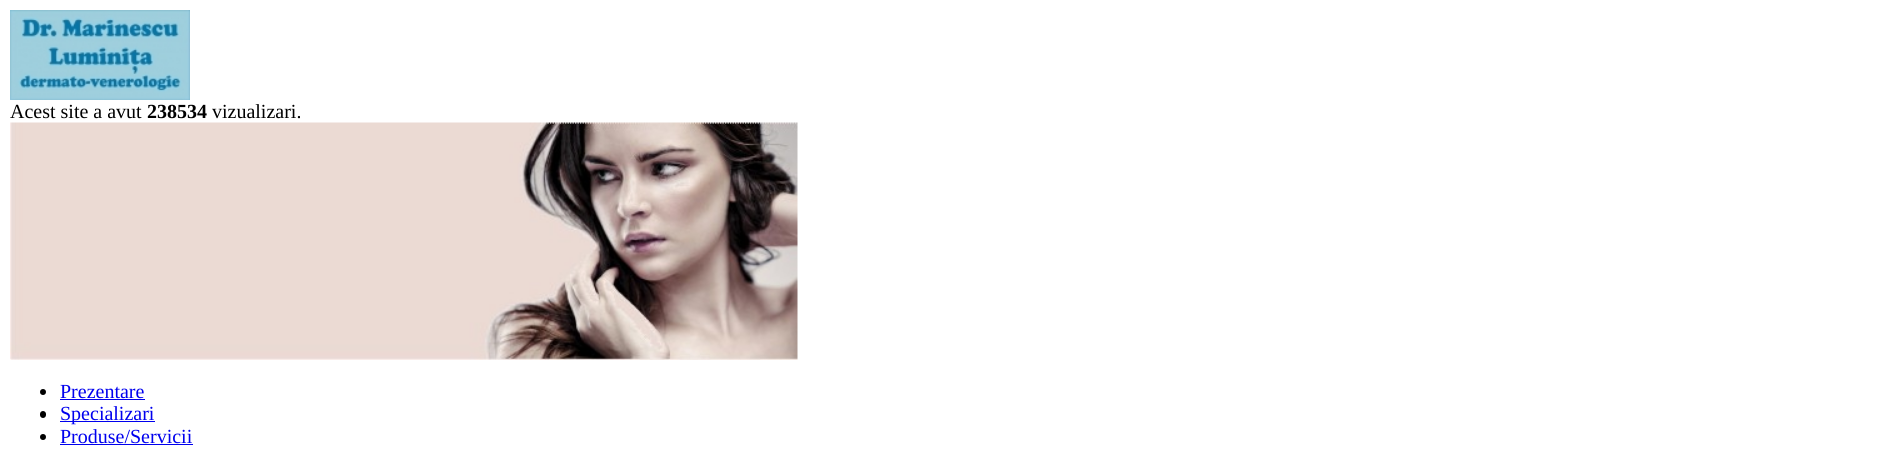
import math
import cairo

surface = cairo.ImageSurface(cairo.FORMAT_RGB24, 1892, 452)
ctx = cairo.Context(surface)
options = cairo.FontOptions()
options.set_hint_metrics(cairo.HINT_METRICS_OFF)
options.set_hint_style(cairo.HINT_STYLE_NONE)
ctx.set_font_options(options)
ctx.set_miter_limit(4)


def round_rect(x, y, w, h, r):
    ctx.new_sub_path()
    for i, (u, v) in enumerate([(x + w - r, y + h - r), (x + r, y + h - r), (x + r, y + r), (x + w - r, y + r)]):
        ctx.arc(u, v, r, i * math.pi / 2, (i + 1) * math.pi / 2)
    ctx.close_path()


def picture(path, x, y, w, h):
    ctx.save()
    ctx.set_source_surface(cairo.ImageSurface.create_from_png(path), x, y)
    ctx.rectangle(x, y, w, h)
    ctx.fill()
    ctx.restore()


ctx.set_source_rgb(1, 1, 1)
ctx.paint()
picture("img1.png", 10, 10, 180, 90)
ctx.select_font_face("Liberation Serif")
ctx.set_font_size(20)
ctx.set_source_rgb(0, 0, 0)
ctx.move_to(10, 118)
ctx.show_text("Acest site a avut")
ctx.select_font_face("Liberation Serif", cairo.FONT_SLANT_NORMAL, cairo.FONT_WEIGHT_BOLD)
ctx.move_to(147, 118)
ctx.show_text("238534")
ctx.select_font_face("Liberation Serif")
ctx.move_to(212, 118)
ctx.show_text("vizualizari.")
picture("img2.png", 10, 122, 788, 238)
ctx.arc(43, 392, 3, 0, 2 * math.pi)
ctx.fill()
ctx.set_source_rgb(0, 0, 0.933)
ctx.move_to(60, 398)
ctx.show_text("Prezentare")
ctx.rectangle(60, 399, 85, 1)
ctx.fill()
ctx.set_source_rgb(0, 0, 0)
round_rect(40, 411, 6, 7, 3)
ctx.fill()
ctx.set_source_rgb(0, 0, 0.933)
ctx.rectangle(60, 421, 95, 1)
ctx.fill()
ctx.move_to(60, 420)
ctx.show_text("Specializari")
ctx.set_source_rgb(0, 0, 0)
ctx.new_path()
ctx.arc(43, 437, 3, 0, 2 * math.pi)
ctx.fill()
ctx.set_source_rgb(0, 0, 0.933)
ctx.move_to(60, 443)
ctx.show_text("Produse/Servicii")
ctx.rectangle(60, 444, 133, 1)
ctx.fill()
surface.write_to_png("page.png")
